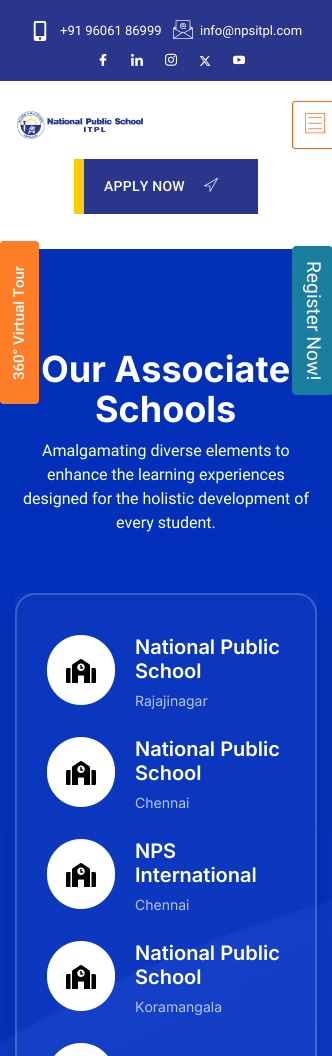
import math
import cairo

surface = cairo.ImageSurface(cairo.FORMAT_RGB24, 332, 1056)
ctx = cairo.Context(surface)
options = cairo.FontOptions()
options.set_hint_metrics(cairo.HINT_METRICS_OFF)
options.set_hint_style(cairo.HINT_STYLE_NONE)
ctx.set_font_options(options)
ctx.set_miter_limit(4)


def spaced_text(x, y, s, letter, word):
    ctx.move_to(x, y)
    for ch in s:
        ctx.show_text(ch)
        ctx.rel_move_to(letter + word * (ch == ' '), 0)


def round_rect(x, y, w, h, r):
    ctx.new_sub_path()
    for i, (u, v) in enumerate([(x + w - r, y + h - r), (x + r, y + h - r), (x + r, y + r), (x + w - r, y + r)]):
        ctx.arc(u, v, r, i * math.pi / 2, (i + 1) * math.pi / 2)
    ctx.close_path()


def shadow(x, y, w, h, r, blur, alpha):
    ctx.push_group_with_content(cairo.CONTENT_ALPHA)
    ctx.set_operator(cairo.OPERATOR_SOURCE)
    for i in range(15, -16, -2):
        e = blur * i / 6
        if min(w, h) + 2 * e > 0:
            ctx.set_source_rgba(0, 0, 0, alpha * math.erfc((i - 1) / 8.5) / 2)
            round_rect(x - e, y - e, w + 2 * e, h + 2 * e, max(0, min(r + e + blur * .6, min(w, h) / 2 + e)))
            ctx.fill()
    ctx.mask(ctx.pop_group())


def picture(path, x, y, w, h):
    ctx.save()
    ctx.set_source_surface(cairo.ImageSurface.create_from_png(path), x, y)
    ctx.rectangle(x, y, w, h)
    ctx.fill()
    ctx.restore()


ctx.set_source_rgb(1, 1, 1)
ctx.paint()
ctx.set_source_rgb(0.161, 0.212, 0.545)
ctx.rectangle(0, 0, 332, 81)
ctx.fill()
picture("img1.png", 33, 21, 14, 20)
ctx.select_font_face("Roboto")
ctx.set_font_size(13)
ctx.set_source_rgb(1, 1, 1)
ctx.move_to(60, 35)
ctx.show_text("+91 96061 86999")
picture("img2.png", 173, 20, 20, 19)
ctx.move_to(200, 35)
ctx.show_text("info@npsitpl.com")
picture("img3.png", 99, 53, 8, 13)
picture("img4.png", 131, 53, 12, 13)
picture("img5.png", 165, 53, 13, 13)
picture("img6.png", 199, 56, 12, 10)
picture("img7.png", 233, 55, 12, 10)
picture("img8.png", 17, 111, 126, 28)
round_rect(292.5, 101.5, 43, 47, 2.5)
ctx.set_source_rgb(1, 0.369, 0.075)
ctx.set_line_width(1)
ctx.stroke()
picture("img9.png", 305, 113, 20, 21)
ctx.set_source_rgb(0.161, 0.212, 0.545)
ctx.rectangle(84, 159, 174, 55)
ctx.fill()
ctx.set_source_rgb(1, 0.796, 0.02)
ctx.rectangle(74, 159, 10, 55)
ctx.fill()
ctx.select_font_face("Roboto Medium")
ctx.set_font_size(14)
ctx.set_source_rgb(1, 1, 1)
spaced_text(104, 191, "APPLY NOW", 0.25, 0)
picture("img10.png", 204, 177, 14, 15)
picture("img11.png", 0, 249, 332, 807)
ctx.set_source_rgb(1, 0.494, 0.153)
ctx.new_path()
ctx.move_to(0, 401)
ctx.line_to(0, 244)
ctx.curve_to(0, 243, 1, 241, 3, 241)
ctx.line_to(36, 241)
ctx.curve_to(37, 241, 39, 243, 39, 244)
ctx.line_to(39, 401)
ctx.curve_to(39, 402, 37, 404, 36, 404)
ctx.line_to(3, 404)
ctx.curve_to(1, 404, 0, 402, 0, 401)
ctx.close_path()
ctx.fill()
ctx.set_font_size(15)
ctx.set_source_rgb(1, 1, 1)
ctx.save()
ctx.translate(24, 380)
ctx.rotate(-90 * math.pi / 180)
ctx.move_to(0, 0)
ctx.show_text("360° Virtual Tour")
ctx.restore()
ctx.set_source_rgb(0.102, 0.494, 0.624)
ctx.new_path()
ctx.move_to(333, 250)
ctx.line_to(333, 391)
ctx.curve_to(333, 393, 331, 395, 329, 395)
ctx.line_to(296, 395)
ctx.curve_to(294, 395, 292, 393, 292, 391)
ctx.line_to(292, 250)
ctx.curve_to(292, 248, 294, 246, 296, 246)
ctx.line_to(329, 246)
ctx.curve_to(331, 246, 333, 248, 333, 250)
ctx.close_path()
ctx.fill()
ctx.select_font_face("Roboto")
ctx.set_font_size(19.25)
ctx.set_source_rgb(1, 1, 1)
ctx.save()
ctx.translate(307, 261)
ctx.rotate(90 * math.pi / 180)
ctx.move_to(0, 0)
ctx.show_text("Register Now!")
ctx.restore()
ctx.select_font_face("Inter", cairo.FONT_SLANT_NORMAL, cairo.FONT_WEIGHT_BOLD)
ctx.set_font_size(36)
ctx.move_to(41, 382)
ctx.show_text("Our Associate")
ctx.move_to(95, 422)
ctx.show_text("Schools")
ctx.select_font_face("Roboto")
ctx.set_font_size(16)
ctx.set_source_rgb(0.965, 1, 0.953)
ctx.move_to(42, 456)
ctx.show_text("Amalgamating diverse elements to")
ctx.move_to(47, 480)
ctx.show_text("enhance the learning experiences")
ctx.move_to(23, 504)
ctx.show_text("designed for the holistic development of")
ctx.move_to(116, 528)
ctx.show_text("every student.")
ctx.save()
ctx.set_fill_rule(cairo.FILL_RULE_EVEN_ODD)
ctx.new_path()
ctx.move_to(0, 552)
ctx.line_to(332, 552)
ctx.line_to(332, 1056)
ctx.line_to(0, 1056)
ctx.close_path()
ctx.move_to(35, 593)
ctx.line_to(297, 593)
ctx.curve_to(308, 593, 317, 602, 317, 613)
ctx.line_to(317, 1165)
ctx.curve_to(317, 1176, 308, 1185, 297, 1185)
ctx.line_to(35, 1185)
ctx.curve_to(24, 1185, 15, 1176, 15, 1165)
ctx.line_to(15, 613)
ctx.curve_to(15, 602, 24, 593, 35, 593)
ctx.close_path()
ctx.clip()
ctx.set_source_rgb(0.02, 0.075, 0.251)
shadow(15, 613, 302, 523, 20, 20, 0.2)
ctx.restore()
ctx.set_source_rgba(1, 1, 1, 0.03)
ctx.rectangle(15, 593, 302, 463)
ctx.fill()
round_rect(16, 594, 300, 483, 19)
ctx.set_source_rgba(1, 1, 1, 0.2)
ctx.set_line_width(2)
ctx.stroke()
ctx.set_source_rgb(1, 1, 1)
round_rect(47, 635, 68, 70, 34)
ctx.fill()
picture("img12.png", 66, 659, 30, 24)
ctx.select_font_face("Inter SemiBold")
ctx.set_font_size(20)
ctx.move_to(135, 654)
ctx.show_text("National Public")
ctx.move_to(135, 678)
ctx.show_text("School")
ctx.select_font_face("Inter")
ctx.set_font_size(14)
ctx.set_source_rgb(0.714, 0.765, 0.922)
ctx.move_to(135, 706)
ctx.show_text("Rajajinagar")
ctx.set_source_rgb(1, 1, 1)
round_rect(47, 737, 68, 70, 34)
ctx.fill()
picture("img12.png", 66, 761, 30, 24)
ctx.select_font_face("Inter SemiBold")
ctx.set_font_size(20)
ctx.move_to(135, 756)
ctx.show_text("National Public")
ctx.move_to(135, 780)
ctx.show_text("School")
ctx.select_font_face("Inter")
ctx.set_font_size(14)
ctx.set_source_rgb(0.714, 0.765, 0.922)
ctx.move_to(135, 808)
ctx.show_text("Chennai")
ctx.set_source_rgb(1, 1, 1)
round_rect(47, 839, 68, 70, 34)
ctx.fill()
picture("img12.png", 66, 863, 30, 24)
ctx.select_font_face("Inter SemiBold")
ctx.set_font_size(20)
ctx.move_to(135, 858)
ctx.show_text("NPS")
ctx.move_to(135, 882)
ctx.show_text("International")
ctx.select_font_face("Inter")
ctx.set_font_size(14)
ctx.set_source_rgb(0.714, 0.765, 0.922)
ctx.move_to(135, 910)
ctx.show_text("Chennai")
ctx.set_source_rgb(1, 1, 1)
round_rect(47, 941, 68, 70, 34)
ctx.fill()
picture("img12.png", 66, 965, 30, 24)
ctx.select_font_face("Inter SemiBold")
ctx.set_font_size(20)
ctx.move_to(135, 960)
ctx.show_text("National Public")
ctx.move_to(135, 984)
ctx.show_text("School")
ctx.select_font_face("Inter")
ctx.set_font_size(14)
ctx.set_source_rgb(0.714, 0.765, 0.922)
ctx.move_to(135, 1012)
ctx.show_text("Koramangala")
ctx.set_source_rgb(1, 1, 1)
round_rect(47, 1043, 68, 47, 34)
ctx.fill()
surface.write_to_png("page.png")
